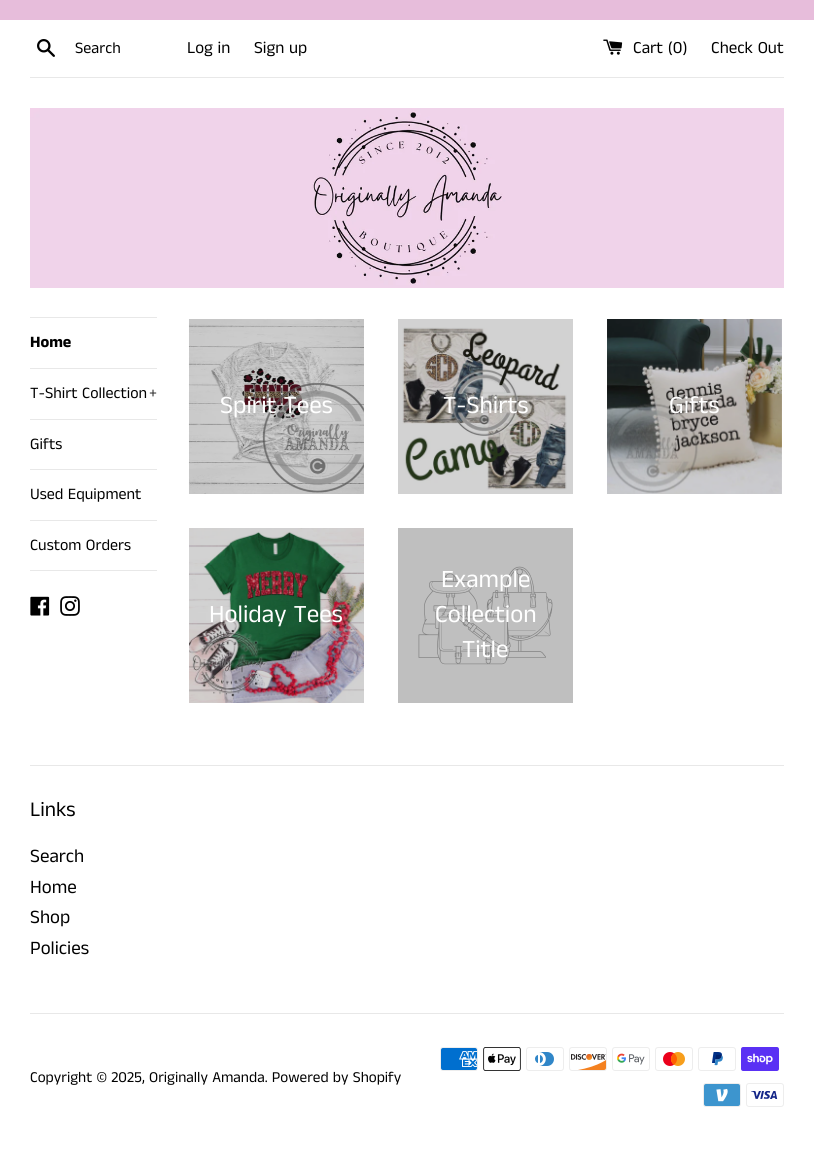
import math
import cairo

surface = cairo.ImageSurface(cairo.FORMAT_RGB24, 814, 1167)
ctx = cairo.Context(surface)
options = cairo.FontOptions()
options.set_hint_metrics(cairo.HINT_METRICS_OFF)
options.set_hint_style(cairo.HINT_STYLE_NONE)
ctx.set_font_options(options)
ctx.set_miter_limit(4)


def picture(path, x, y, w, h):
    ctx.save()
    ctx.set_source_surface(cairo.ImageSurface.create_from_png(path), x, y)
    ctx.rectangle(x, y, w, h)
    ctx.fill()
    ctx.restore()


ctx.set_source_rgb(1, 1, 1)
ctx.paint()
ctx.set_source_rgb(0.824, 0.824, 0.824)
ctx.rectangle(398, 319, 175, 175)
ctx.fill()
ctx.set_source_rgb(0.906, 0.741, 0.859)
ctx.rectangle(0, 0, 814, 20)
ctx.fill()
picture("img1.png", 37, 39, 18, 18)
ctx.select_font_face("Anek Tamil")
ctx.set_font_size(16)
ctx.set_source_rgb(0, 0, 0)
ctx.move_to(75, 53)
ctx.show_text("Search")
ctx.set_font_size(17)
ctx.move_to(187, 53)
ctx.show_text("Log in")
ctx.move_to(254, 53)
ctx.show_text("Sign up")
picture("img2.png", 603, 39, 20, 16)
ctx.move_to(633, 53)
ctx.show_text("Cart (0)")
ctx.move_to(711, 53)
ctx.show_text("Check Out")
ctx.set_source_rgb(0.91, 0.91, 0.91)
ctx.rectangle(30, 77, 754, 1)
ctx.fill()
picture("img3.png", 30, 108, 754, 180)
ctx.rectangle(30, 317, 127, 1)
ctx.fill()
ctx.rectangle(30, 368, 127, 1)
ctx.fill()
ctx.select_font_face("Anek Tamil", cairo.FONT_SLANT_NORMAL, cairo.FONT_WEIGHT_BOLD)
ctx.set_font_size(16)
ctx.set_source_rgb(0, 0, 0)
ctx.move_to(30, 347)
ctx.show_text("Home")
ctx.set_source_rgb(0.91, 0.91, 0.91)
ctx.rectangle(30, 419, 127, 1)
ctx.fill()
ctx.select_font_face("Anek Tamil")
ctx.set_source_rgb(0, 0, 0)
ctx.move_to(30, 398)
ctx.show_text("T-Shirt Collection")
ctx.set_source_rgb(0.2, 0.2, 0.2)
ctx.move_to(149, 398)
ctx.show_text("+")
ctx.set_source_rgb(0.91, 0.91, 0.91)
ctx.rectangle(30, 469, 127, 1)
ctx.fill()
ctx.set_source_rgb(0, 0, 0)
ctx.move_to(30, 449)
ctx.show_text("Gifts")
ctx.set_source_rgb(0.91, 0.91, 0.91)
ctx.rectangle(30, 520, 127, 1)
ctx.fill()
ctx.set_source_rgb(0, 0, 0)
ctx.move_to(30, 499)
ctx.show_text("Used Equipment")
ctx.set_source_rgb(0.91, 0.91, 0.91)
ctx.rectangle(30, 570, 127, 1)
ctx.fill()
ctx.set_source_rgb(0, 0, 0)
ctx.move_to(30, 550)
ctx.show_text("Custom Orders")
picture("img4.png", 30, 596, 20, 20)
picture("img5.png", 60, 596, 20, 20)
picture("img6.png", 188, 319, 176, 175)
ctx.set_font_size(25)
ctx.set_source_rgb(1, 1, 1)
ctx.move_to(220, 413)
ctx.show_text("Spirit Tees")
picture("img7.png", 402, 327, 165, 163)
ctx.move_to(443, 413)
ctx.show_text("T-Shirts")
picture("img8.png", 607, 319, 175, 175)
ctx.move_to(669, 413)
ctx.show_text("Gifts")
picture("img9.png", 189, 528, 175, 175)
ctx.move_to(209, 622)
ctx.show_text("Holiday Tees")
ctx.set_source_rgb(0.749, 0.749, 0.749)
ctx.rectangle(398, 528, 175, 175)
ctx.fill()
picture("img10.png", 418, 566, 135, 99)
ctx.set_source_rgb(1, 1, 1)
ctx.move_to(441, 587)
ctx.show_text("Example")
ctx.move_to(435, 622)
ctx.show_text("Collection")
ctx.move_to(462, 657)
ctx.show_text("Title")
ctx.set_source_rgb(0.91, 0.91, 0.91)
ctx.rectangle(30, 765, 754, 1)
ctx.fill()
ctx.set_font_size(21)
ctx.set_source_rgb(0, 0, 0)
ctx.move_to(30, 816)
ctx.show_text("Links")
ctx.set_font_size(19)
ctx.move_to(30, 862)
ctx.show_text("Search")
ctx.move_to(30, 893)
ctx.show_text("Home")
ctx.move_to(30, 923)
ctx.show_text("Shop")
ctx.move_to(30, 954)
ctx.show_text("Policies")
ctx.set_source_rgb(0.91, 0.91, 0.91)
ctx.rectangle(30, 1013, 754, 1)
ctx.fill()
ctx.set_font_size(15.2)
ctx.set_source_rgb(0, 0, 0)
ctx.move_to(30, 1082)
ctx.show_text("Copyright © 2025, Originally Amanda. Powered by Shopify")
picture("img11.png", 440, 1047, 38, 24)
picture("img12.png", 483, 1047, 38, 24)
picture("img13.png", 526, 1047, 38, 24)
picture("img14.png", 569, 1047, 38, 24)
picture("img15.png", 612, 1047, 38, 24)
picture("img16.png", 655, 1047, 38, 24)
picture("img17.png", 698, 1047, 38, 24)
picture("img18.png", 741, 1047, 38, 24)
picture("img19.png", 703, 1083, 38, 24)
picture("img20.png", 746, 1083, 38, 24)
surface.write_to_png("page.png")
